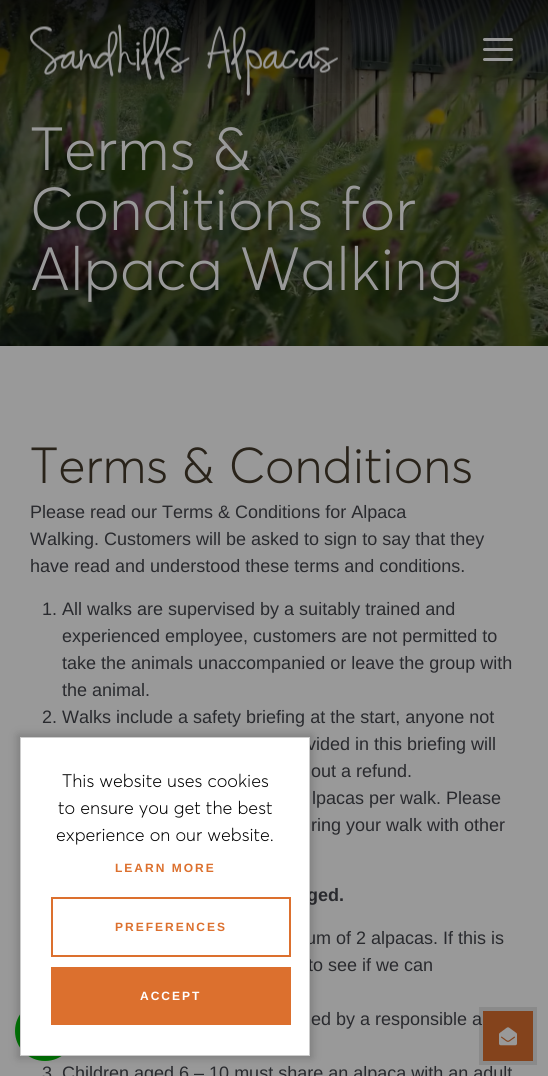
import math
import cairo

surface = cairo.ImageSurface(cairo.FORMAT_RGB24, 548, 1076)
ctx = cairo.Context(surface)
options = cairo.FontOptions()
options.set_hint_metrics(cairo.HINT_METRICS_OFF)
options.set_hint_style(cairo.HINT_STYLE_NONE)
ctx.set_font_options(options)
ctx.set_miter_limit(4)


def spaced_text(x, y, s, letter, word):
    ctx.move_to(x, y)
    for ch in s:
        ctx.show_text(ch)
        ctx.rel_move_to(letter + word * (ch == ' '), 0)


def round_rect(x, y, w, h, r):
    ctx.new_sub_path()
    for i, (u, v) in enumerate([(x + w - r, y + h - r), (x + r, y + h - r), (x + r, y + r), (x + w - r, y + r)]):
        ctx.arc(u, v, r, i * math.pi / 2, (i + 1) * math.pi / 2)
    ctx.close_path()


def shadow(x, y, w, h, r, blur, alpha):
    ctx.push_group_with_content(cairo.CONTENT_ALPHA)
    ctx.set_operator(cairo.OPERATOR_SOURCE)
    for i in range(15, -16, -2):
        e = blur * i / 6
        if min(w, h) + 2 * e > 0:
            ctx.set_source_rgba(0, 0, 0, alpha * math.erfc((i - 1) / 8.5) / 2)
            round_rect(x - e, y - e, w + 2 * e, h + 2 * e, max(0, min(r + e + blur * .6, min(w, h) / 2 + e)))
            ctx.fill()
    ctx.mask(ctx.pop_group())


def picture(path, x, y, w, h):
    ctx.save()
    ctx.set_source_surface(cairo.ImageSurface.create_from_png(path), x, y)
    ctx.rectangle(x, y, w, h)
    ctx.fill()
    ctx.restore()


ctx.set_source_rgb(0.6, 0.6, 0.6)
ctx.paint()
picture("img2.png", 0, 0, 548, 346)
gradient = cairo.LinearGradient(274, 0, 274, 130)
gradient.add_color_stop_rgba(0, 0, 0, 0, 0.7)
gradient.add_color_stop_rgba(0.75, 0, 0, 0, 0)
ctx.set_source(gradient)
ctx.rectangle(0, 0, 548, 93)
ctx.fill()
picture("img1.png", 30, 24, 308, 72)
ctx.set_source_rgb(0.6, 0.6, 0.6)
round_rect(483, 58, 30, 3, 1.5)
ctx.fill()
round_rect(483, 38, 30, 3, 1.5)
ctx.fill()
round_rect(483, 48, 30, 3, 1.5)
ctx.fill()
ctx.select_font_face("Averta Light")
ctx.set_font_size(60)
ctx.move_to(30, 170)
ctx.show_text("Terms &")
ctx.move_to(30, 230)
ctx.show_text("Conditions for")
ctx.move_to(30, 290)
ctx.show_text("Alpaca Walking")
ctx.set_font_size(50)
ctx.set_source_rgb(0.161, 0.137, 0.102)
ctx.move_to(30, 483)
ctx.show_text("Terms & Conditions")
ctx.select_font_face("Liberation Sans")
ctx.set_font_size(18)
ctx.set_source_rgb(0.161, 0.165, 0.18)
ctx.move_to(30, 518)
ctx.show_text("Please read our Terms & Conditions for Alpaca")
ctx.move_to(30, 545)
ctx.show_text("Walking. Customers will be asked to sign to say that they")
ctx.move_to(30, 572)
ctx.show_text("have read and understood these terms and conditions.")
ctx.move_to(42, 615)
ctx.show_text("1. All walks are supervised by a suitably trained and")
ctx.move_to(62, 642)
ctx.show_text("experienced employee, customers are not permitted to")
ctx.move_to(62, 669)
ctx.show_text("take the animals unaccompanied or leave the group with")
ctx.move_to(62, 696)
ctx.show_text("the animal.")
ctx.move_to(42, 723)
ctx.show_text("2. Walks include a safety briefing at the start, anyone not")
ctx.move_to(307, 750)
ctx.show_text("vided in this briefing will")
ctx.move_to(311, 777)
ctx.show_text("out a refund.")
ctx.move_to(312, 804)
ctx.show_text("lpacas per walk. Please")
ctx.move_to(311, 831)
ctx.show_text("ring your walk with other")
ctx.select_font_face("Liberation Sans", cairo.FONT_SLANT_NORMAL, cairo.FONT_WEIGHT_BOLD)
ctx.move_to(307, 901)
ctx.show_text("ged.")
ctx.select_font_face("Liberation Sans")
ctx.move_to(306, 944)
ctx.show_text("um of 2 alpacas. If this is")
ctx.move_to(308, 971)
ctx.show_text("to see if we can")
ctx.move_to(311, 1025)
ctx.show_text("ed by a responsible a")
ctx.move_to(42, 1079)
ctx.show_text("3")
ctx.move_to(62, 1079)
ctx.show_text("Children aged 6 – 10 must share an alpaca with an adult")
ctx.set_source_rgb(0, 0.459, 0.016)
ctx.new_path()
ctx.arc(45, 1031, 30, 0, 2 * math.pi)
ctx.fill()
ctx.set_source_rgb(0, 0, 0)
shadow(18, 735, 294, 323, 0, 4.5, 0.2)
ctx.set_source_rgb(1, 1, 1)
ctx.rectangle(20.5, 737.5, 289, 318)
ctx.fill_preserve()
ctx.set_source_rgb(0.8, 0.8, 0.8)
ctx.set_line_width(1)
ctx.stroke()
ctx.select_font_face("Averta Light")
ctx.set_source_rgb(0, 0, 0)
ctx.move_to(62, 787)
ctx.show_text("This website uses cookies")
ctx.move_to(58, 814)
ctx.show_text("to ensure you get the best")
ctx.move_to(56, 841)
ctx.show_text("experience on our website.")
ctx.select_font_face("Liberation Sans", cairo.FONT_SLANT_NORMAL, cairo.FONT_WEIGHT_BOLD)
ctx.set_font_size(12)
ctx.set_source_rgb(0.863, 0.439, 0.18)
spaced_text(115, 872, "LEARN MORE", 2, 0)
ctx.rectangle(52, 898, 238, 58)
ctx.set_line_width(2)
ctx.stroke()
spaced_text(115, 931, "PREFERENCES", 2, 0)
ctx.rectangle(51, 967, 240, 58)
ctx.fill()
ctx.set_source_rgb(1, 1, 1)
spaced_text(140, 1000, "ACCEPT", 2, 0)
ctx.rectangle(481, 1009, 54, 54)
ctx.set_source_rgba(0, 0, 0, 0.1)
ctx.set_line_width(4)
ctx.stroke()
ctx.set_source_rgb(0.518, 0.263, 0.11)
ctx.rectangle(483, 1011, 50, 50)
ctx.fill()
picture("img3.png", 499, 1027, 18, 19)
surface.write_to_png("page.png")
